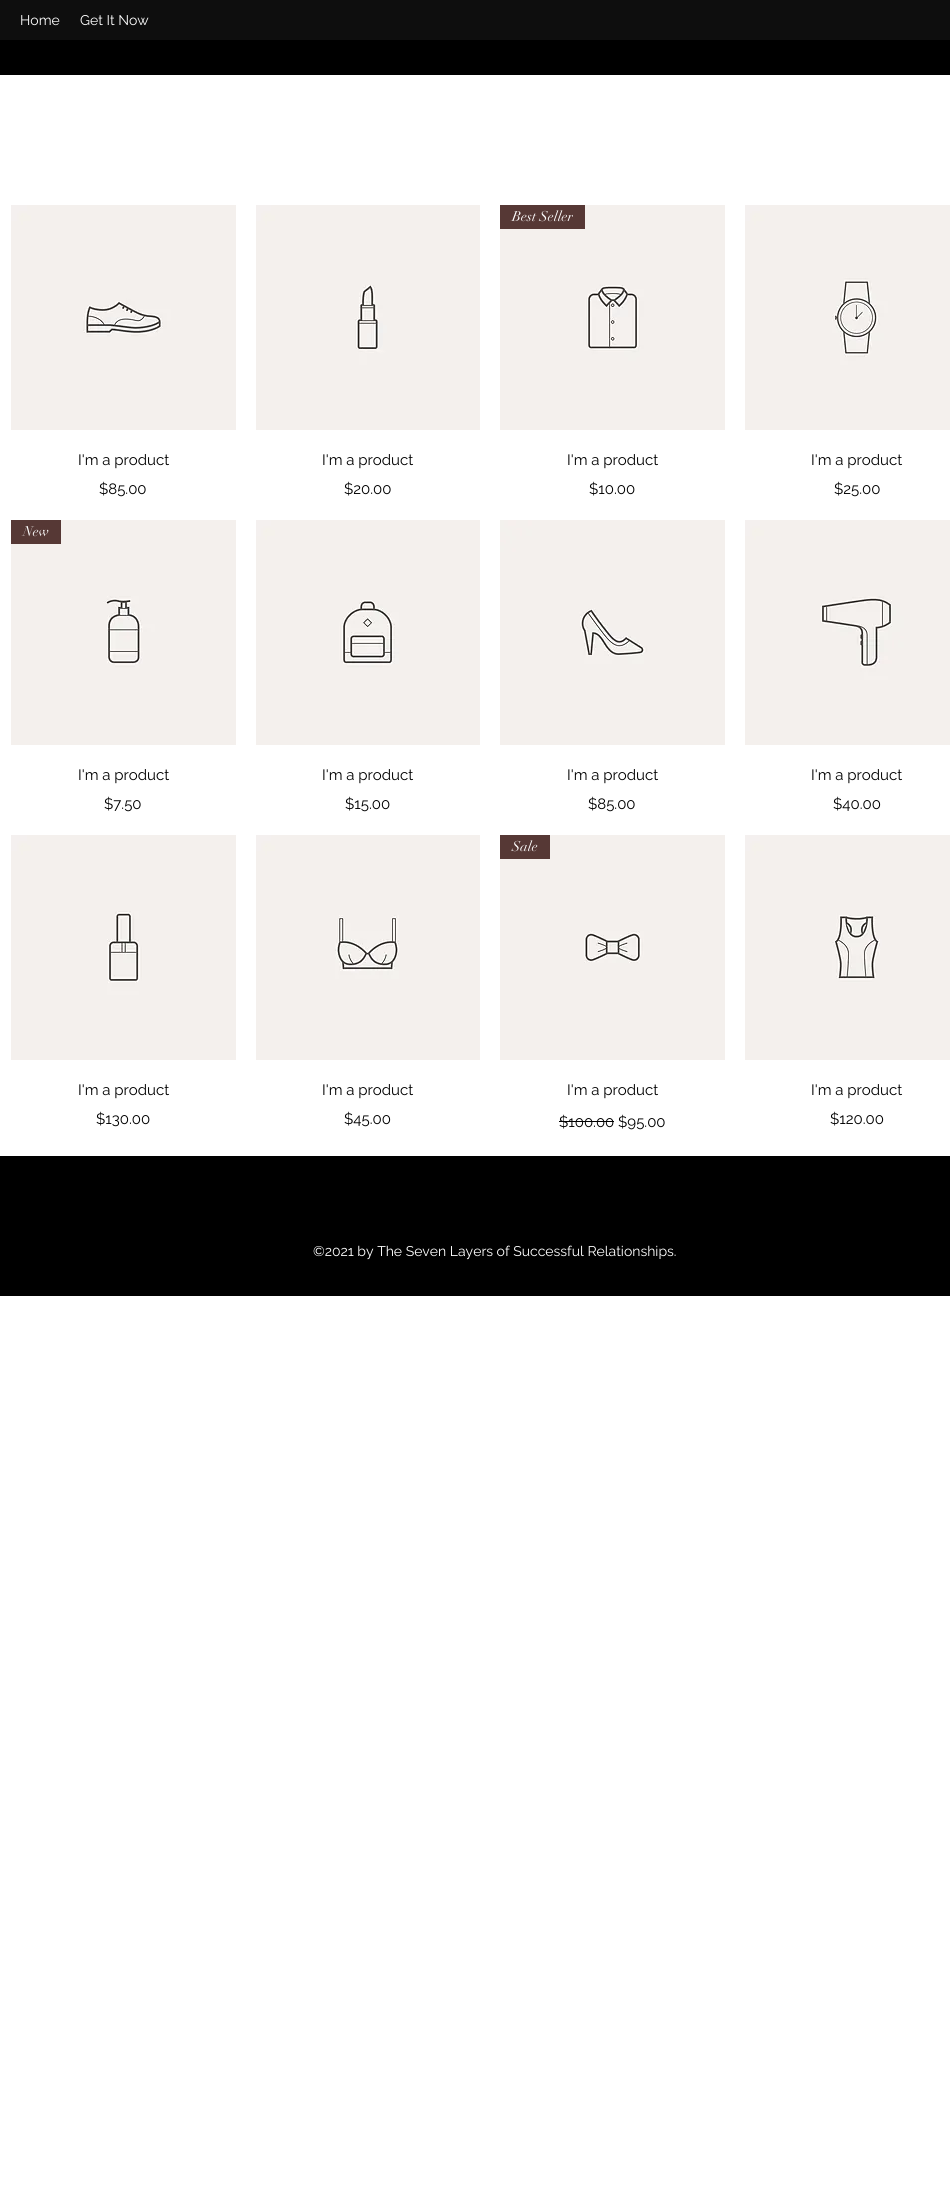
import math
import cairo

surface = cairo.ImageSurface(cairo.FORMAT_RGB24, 950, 2200)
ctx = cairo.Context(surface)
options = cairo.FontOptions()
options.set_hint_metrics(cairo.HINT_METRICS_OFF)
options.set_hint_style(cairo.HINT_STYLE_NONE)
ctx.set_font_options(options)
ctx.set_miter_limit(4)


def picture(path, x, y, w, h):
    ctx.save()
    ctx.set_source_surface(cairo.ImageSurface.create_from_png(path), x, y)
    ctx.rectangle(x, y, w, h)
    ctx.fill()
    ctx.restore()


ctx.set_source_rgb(1, 1, 1)
ctx.paint()
ctx.set_source_rgb(0.055, 0.055, 0.055)
ctx.rectangle(0, 0, 950, 40)
ctx.fill()
ctx.select_font_face("Raleway")
ctx.set_font_size(14)
ctx.set_source_rgb(1, 1, 1)
ctx.move_to(20, 25)
ctx.show_text("Home")
ctx.move_to(80, 25)
ctx.show_text("Get It Now")
ctx.set_source_rgb(0, 0, 0)
ctx.rectangle(0, 40, 950, 35)
ctx.fill()
picture("img1.png", 11, 205, 225, 225)
ctx.set_font_size(15)
ctx.move_to(78, 465)
ctx.show_text("I'm a product")
ctx.move_to(99, 494)
ctx.show_text("$85.00")
picture("img2.png", 256, 205, 224, 225)
ctx.move_to(322, 465)
ctx.show_text("I'm a product")
ctx.move_to(344, 494)
ctx.show_text("$20.00")
picture("img3.png", 500, 205, 225, 225)
ctx.set_source_rgb(0.337, 0.22, 0.208)
ctx.rectangle(500, 205, 85, 24)
ctx.fill()
ctx.select_font_face("didot")
ctx.set_font_size(14)
ctx.set_source_rgb(1, 1, 1)
ctx.move_to(512, 221)
ctx.show_text("Best Seller")
ctx.select_font_face("Raleway")
ctx.set_font_size(15)
ctx.set_source_rgb(0, 0, 0)
ctx.move_to(567, 465)
ctx.show_text("I'm a product")
ctx.move_to(589, 494)
ctx.show_text("$10.00")
picture("img4.png", 745, 205, 205, 225)
ctx.move_to(811, 465)
ctx.show_text("I'm a product")
ctx.move_to(834, 494)
ctx.show_text("$25.00")
picture("img5.png", 11, 520, 225, 225)
ctx.set_source_rgb(0.337, 0.22, 0.208)
ctx.rectangle(11, 520, 50, 24)
ctx.fill()
ctx.select_font_face("didot")
ctx.set_font_size(14)
ctx.set_source_rgb(1, 1, 1)
ctx.move_to(23, 536)
ctx.show_text("New")
ctx.select_font_face("Raleway")
ctx.set_font_size(15)
ctx.set_source_rgb(0, 0, 0)
ctx.move_to(78, 780)
ctx.show_text("I'm a product")
ctx.move_to(104, 809)
ctx.show_text("$7.50")
picture("img6.png", 256, 520, 224, 225)
ctx.move_to(322, 780)
ctx.show_text("I'm a product")
ctx.move_to(345, 809)
ctx.show_text("$15.00")
picture("img7.png", 500, 520, 225, 225)
ctx.move_to(567, 780)
ctx.show_text("I'm a product")
ctx.move_to(588, 809)
ctx.show_text("$85.00")
picture("img8.png", 745, 520, 205, 225)
ctx.move_to(811, 780)
ctx.show_text("I'm a product")
ctx.move_to(833, 809)
ctx.show_text("$40.00")
picture("img9.png", 11, 835, 225, 225)
ctx.move_to(78, 1095)
ctx.show_text("I'm a product")
ctx.move_to(96, 1124)
ctx.show_text("$130.00")
picture("img10.png", 256, 835, 224, 225)
ctx.move_to(322, 1095)
ctx.show_text("I'm a product")
ctx.move_to(344, 1124)
ctx.show_text("$45.00")
picture("img11.png", 500, 835, 225, 225)
ctx.set_source_rgb(0.337, 0.22, 0.208)
ctx.rectangle(500, 835, 50, 24)
ctx.fill()
ctx.select_font_face("didot")
ctx.set_font_size(14)
ctx.set_source_rgb(1, 1, 1)
ctx.move_to(512, 851)
ctx.show_text("Sale")
ctx.select_font_face("Raleway")
ctx.set_font_size(15)
ctx.set_source_rgb(0, 0, 0)
ctx.move_to(567, 1095)
ctx.show_text("I'm a product")
ctx.move_to(559, 1127)
ctx.show_text("$100.00 $95.00")
ctx.rectangle(559, 1121, 55, 1)
ctx.fill()
picture("img12.png", 745, 835, 205, 225)
ctx.move_to(811, 1095)
ctx.show_text("I'm a product")
ctx.move_to(830, 1124)
ctx.show_text("$120.00")
ctx.rectangle(0, 1156, 950, 140)
ctx.fill()
ctx.set_font_size(14)
ctx.set_source_rgb(1, 1, 1)
ctx.move_to(313, 1256)
ctx.show_text("©2021 by The Seven Layers of Successful Relationships.")
surface.write_to_png("page.png")
